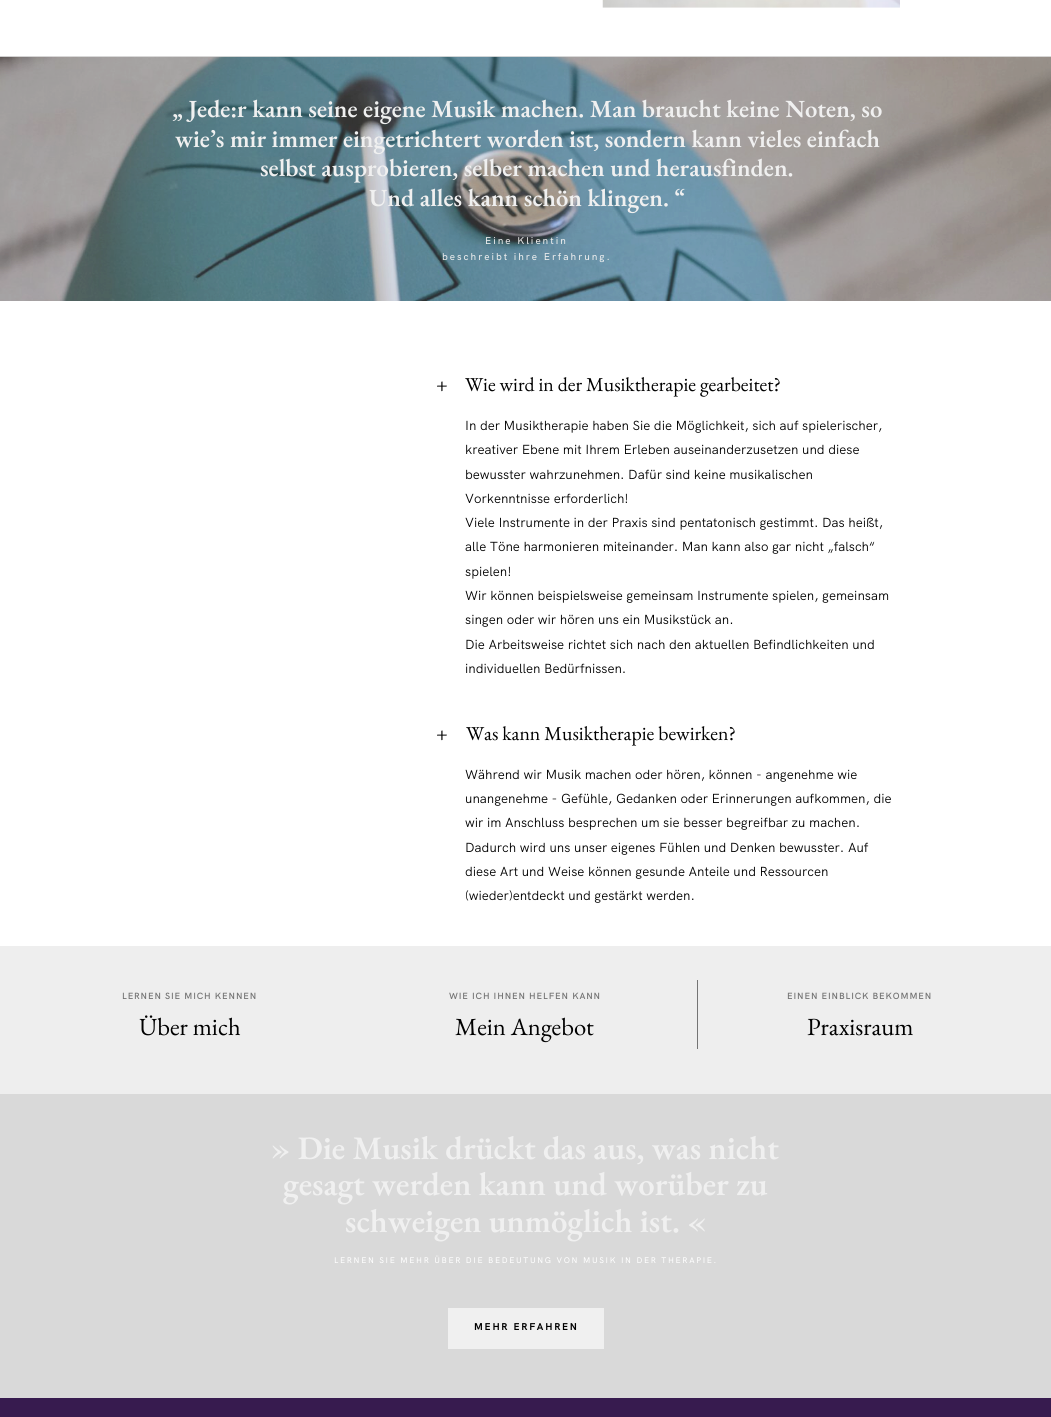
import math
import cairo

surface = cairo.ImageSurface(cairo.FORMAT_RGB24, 1051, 1417)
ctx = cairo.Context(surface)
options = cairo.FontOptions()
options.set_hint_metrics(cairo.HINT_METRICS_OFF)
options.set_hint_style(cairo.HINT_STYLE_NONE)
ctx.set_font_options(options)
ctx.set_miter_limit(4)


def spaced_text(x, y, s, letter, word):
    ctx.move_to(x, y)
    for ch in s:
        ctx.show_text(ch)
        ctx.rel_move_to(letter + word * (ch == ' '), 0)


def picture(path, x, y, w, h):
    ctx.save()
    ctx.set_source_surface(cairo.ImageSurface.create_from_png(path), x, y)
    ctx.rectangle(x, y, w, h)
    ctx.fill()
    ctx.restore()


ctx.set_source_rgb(1, 1, 1)
ctx.paint()
ctx.set_source_rgb(0.878, 0.878, 0.878)
ctx.rectangle(0, 56, 1051, 245)
ctx.fill()
picture("img1.png", 602, 0, 298, 8)
picture("img2.png", 0, 56, 1051, 245)
ctx.select_font_face("EB Garamond SemiBold")
ctx.set_font_size(24.65)
ctx.set_source_rgb(0.941, 0.941, 0.941)
ctx.move_to(172, 117)
ctx.show_text("„ Jede:r kann seine eigene Musik machen. Man braucht keine Noten, so")
ctx.move_to(175, 147)
ctx.show_text("wie’s mir immer eingetrichtert worden ist, sondern kann vieles einfach")
ctx.move_to(260, 176)
ctx.show_text("selbst ausprobieren, selber machen und herausfinden.")
ctx.move_to(369, 206)
ctx.show_text("Und alles kann schön klingen. “")
ctx.select_font_face("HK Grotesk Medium")
ctx.set_font_size(9.9)
spaced_text(485, 244, "Eine Klientin", 2, 0)
spaced_text(442, 260, "beschreibt ihre Erfahrung.", 2, 0)
ctx.select_font_face("EB Garamond")
ctx.set_font_size(19.75)
ctx.set_source_rgb(0, 0, 0)
ctx.move_to(436, 391)
ctx.show_text("+")
ctx.move_to(465, 391)
ctx.show_text("Wie wird in der Musiktherapie gearbeitet?")
ctx.select_font_face("HK Grotesk")
ctx.set_font_size(13.15)
ctx.move_to(465, 430)
ctx.show_text("In der Musiktherapie haben Sie die Möglichkeit, sich auf spielerischer,")
ctx.move_to(465, 454)
ctx.show_text("kreativer Ebene mit Ihrem Erleben auseinanderzusetzen und diese")
ctx.move_to(465, 479)
ctx.show_text("bewusster wahrzunehmen. Dafür sind keine musikalischen")
ctx.move_to(465, 503)
ctx.show_text("Vorkenntnisse erforderlich!")
ctx.move_to(465, 527)
ctx.show_text("Viele Instrumente in der Praxis sind pentatonisch gestimmt. Das heißt,")
ctx.move_to(465, 551)
ctx.show_text("alle Töne harmonieren miteinander. Man kann also gar nicht „falsch“")
ctx.move_to(465, 576)
ctx.show_text("spielen!")
ctx.move_to(465, 600)
ctx.show_text("Wir können beispielsweise gemeinsam Instrumente spielen, gemeinsam")
ctx.move_to(465, 624)
ctx.show_text("singen oder wir hören uns ein Musikstück an.")
ctx.move_to(465, 649)
ctx.show_text("Die Arbeitsweise richtet sich nach den aktuellen Befindlichkeiten und")
ctx.move_to(465, 673)
ctx.show_text("individuellen Bedürfnissen.")
ctx.select_font_face("EB Garamond")
ctx.set_font_size(19.75)
ctx.move_to(436, 740)
ctx.show_text("+")
ctx.move_to(466, 740)
ctx.show_text("Was kann Musiktherapie bewirken?")
ctx.select_font_face("HK Grotesk")
ctx.set_font_size(13.15)
ctx.move_to(465, 779)
ctx.show_text("Während wir Musik machen oder hören, können - angenehme wie")
ctx.move_to(465, 803)
ctx.show_text("unangenehme - Gefühle, Gedanken oder Erinnerungen aufkommen, die")
ctx.move_to(465, 827)
ctx.show_text("wir im Anschluss besprechen um sie besser begreifbar zu machen.")
ctx.move_to(465, 852)
ctx.show_text("Dadurch wird uns unser eigenes Fühlen und Denken bewusster. Auf")
ctx.move_to(465, 876)
ctx.show_text("diese Art und Weise können gesunde Anteile und Ressourcen")
ctx.move_to(465, 900)
ctx.show_text("(wieder)entdeckt und gestärkt werden.")
ctx.set_source_rgb(0.933, 0.933, 0.933)
ctx.rectangle(0, 946, 1051, 148)
ctx.fill()
ctx.select_font_face("HK Grotesk SemiBold")
ctx.set_font_size(9)
ctx.set_source_rgb(0.455, 0.455, 0.455)
spaced_text(122, 999, "LERNEN SIE MICH KENNEN", 0.9, 0)
spaced_text(449, 999, "WIE ICH IHNEN HELFEN KANN", 0.9, 0)
ctx.rectangle(697, 980, 1, 69)
ctx.fill()
spaced_text(787, 999, "EINEN EINBLICK BEKOMMEN", 0.9, 0)
ctx.select_font_face("EB Garamond")
ctx.set_font_size(24.65)
ctx.set_source_rgb(0, 0, 0)
ctx.move_to(139, 1035)
ctx.show_text("Über mich")
ctx.move_to(455, 1035)
ctx.show_text("Mein Angebot")
ctx.move_to(807, 1035)
ctx.show_text("Praxisraum")
ctx.set_source_rgb(0.851, 0.851, 0.851)
ctx.rectangle(0, 1094, 1051, 304)
ctx.fill()
ctx.select_font_face("EB Garamond SemiBold")
ctx.set_font_size(32.8)
ctx.set_source_rgb(0.941, 0.941, 0.941)
ctx.move_to(271, 1159)
ctx.show_text("» Die Musik drückt das aus, was nicht")
ctx.move_to(283, 1195)
ctx.show_text("gesagt werden kann und worüber zu")
ctx.move_to(345, 1232)
ctx.show_text("schweigen unmöglich ist. «")
ctx.select_font_face("HK Grotesk Medium")
ctx.set_font_size(8.2)
ctx.set_source_rgb(1, 1, 1)
spaced_text(334, 1263, "LERNEN SIE MEHR ÜBER DIE BEDEUTUNG VON MUSIK IN DER THERAPIE.", 1.65, 0)
ctx.set_source_rgb(0.941, 0.941, 0.941)
ctx.rectangle(448, 1308, 156, 41)
ctx.fill()
ctx.select_font_face("HK Grotesk", cairo.FONT_SLANT_NORMAL, cairo.FONT_WEIGHT_BOLD)
ctx.set_font_size(9.9)
ctx.set_source_rgb(0, 0, 0)
spaced_text(474, 1330, "MEHR ERFAHREN", 1.75, 0)
ctx.set_source_rgb(0.216, 0.106, 0.31)
ctx.rectangle(0, 1398, 1051, 19)
ctx.fill()
surface.write_to_png("page.png")
